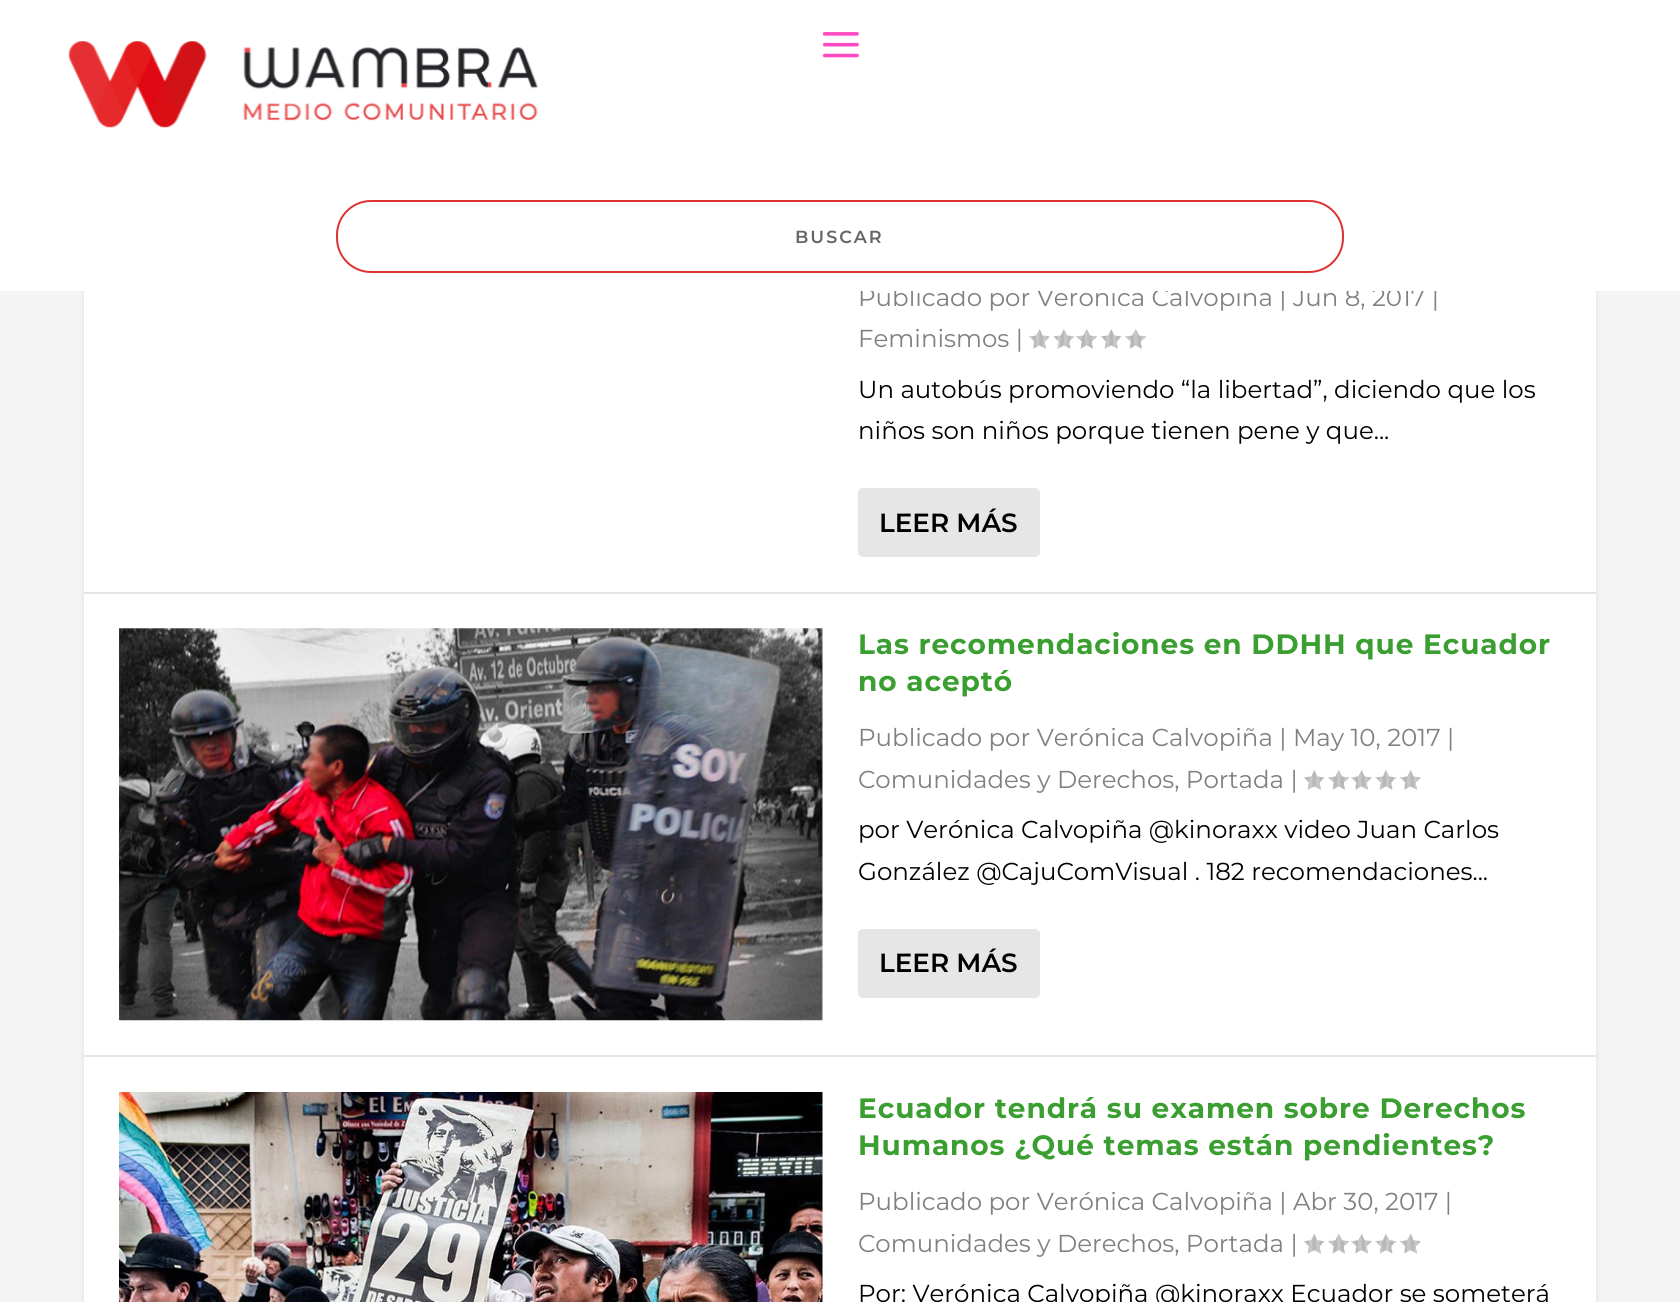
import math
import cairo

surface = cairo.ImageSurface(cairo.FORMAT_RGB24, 1680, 1302)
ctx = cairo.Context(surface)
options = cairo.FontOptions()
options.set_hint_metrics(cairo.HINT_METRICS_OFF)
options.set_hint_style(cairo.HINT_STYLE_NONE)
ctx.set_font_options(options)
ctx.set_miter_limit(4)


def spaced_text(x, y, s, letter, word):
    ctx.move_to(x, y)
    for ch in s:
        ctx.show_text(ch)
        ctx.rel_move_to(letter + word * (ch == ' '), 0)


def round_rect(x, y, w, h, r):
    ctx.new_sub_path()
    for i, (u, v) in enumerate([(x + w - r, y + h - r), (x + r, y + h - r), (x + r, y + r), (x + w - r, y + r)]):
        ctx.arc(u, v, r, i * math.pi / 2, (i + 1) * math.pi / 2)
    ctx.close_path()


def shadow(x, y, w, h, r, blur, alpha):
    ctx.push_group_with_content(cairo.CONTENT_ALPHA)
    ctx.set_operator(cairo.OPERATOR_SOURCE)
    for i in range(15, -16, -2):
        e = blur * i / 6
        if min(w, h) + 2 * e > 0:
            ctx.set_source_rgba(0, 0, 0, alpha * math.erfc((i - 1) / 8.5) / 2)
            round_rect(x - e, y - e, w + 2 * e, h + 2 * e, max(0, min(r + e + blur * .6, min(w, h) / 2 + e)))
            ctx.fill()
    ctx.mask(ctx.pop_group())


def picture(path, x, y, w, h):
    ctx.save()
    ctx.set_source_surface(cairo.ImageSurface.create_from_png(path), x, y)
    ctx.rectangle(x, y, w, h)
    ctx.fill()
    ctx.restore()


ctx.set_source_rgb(0.957, 0.957, 0.957)
ctx.paint()
ctx.set_source_rgb(0, 0, 0)
shadow(84, 144, 1512, 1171, 5, 2.5, 0.1)
ctx.set_source_rgb(1, 1, 1)
ctx.rectangle(84, 291, 1512, 1011)
ctx.fill()
ctx.select_font_face("Montserrat")
ctx.set_font_size(24.5)
ctx.set_source_rgb(0.502, 0.502, 0.502)
ctx.move_to(858, 306)
ctx.show_text("Publicado por Verónica Calvopiña | Jun 8, 2017 |")
ctx.set_source_rgb(1, 1, 1)
ctx.rectangle(0, 0, 1680, 291)
ctx.fill()
picture("img1.png", 68, 41, 471, 87)
picture("img2.png", 822, 32, 37, 26)
round_rect(337, 201, 1006, 71, 34)
ctx.set_source_rgb(0.867, 0.2, 0.2)
ctx.stroke()
ctx.select_font_face("Montserrat SemiBold")
ctx.set_font_size(17.5)
ctx.set_source_rgb(0.4, 0.4, 0.4)
spaced_text(795, 243, "BUSCAR", 2, 0)
ctx.set_source_rgb(0.902, 0.902, 0.902)
ctx.rectangle(84, 592, 1512, 2)
ctx.fill()
ctx.select_font_face("Montserrat")
ctx.set_font_size(24.5)
ctx.set_source_rgb(0.502, 0.502, 0.502)
ctx.move_to(858, 347)
ctx.show_text("Feminismos |")
picture("img3.png", 1029, 329, 21, 20)
picture("img4.png", 1053, 329, 22, 20)
picture("img5.png", 1076, 329, 21, 20)
picture("img6.png", 1101, 329, 21, 20)
picture("img5.png", 1125, 329, 21, 20)
ctx.set_source_rgb(0, 0, 0)
ctx.move_to(858, 398)
ctx.show_text("Un autobús promoviendo “la libertad”, diciendo que los")
ctx.move_to(858, 439)
ctx.show_text("niños son niños porque tienen pene y que...")
ctx.set_source_rgb(0.902, 0.902, 0.902)
round_rect(858, 488, 182, 69, 5)
ctx.fill()
ctx.select_font_face("Montserrat SemiBold")
ctx.set_font_size(26.25)
ctx.set_source_rgb(0, 0, 0)
ctx.move_to(879, 532)
ctx.show_text("LEER MÁS")
ctx.set_source_rgb(0.902, 0.902, 0.902)
ctx.rectangle(84, 1055, 1512, 2)
ctx.fill()
picture("img7.png", 119, 628, 704, 393)
ctx.select_font_face("Montserrat", cairo.FONT_SLANT_NORMAL, cairo.FONT_WEIGHT_BOLD)
ctx.set_font_size(28)
ctx.set_source_rgb(0.227, 0.62, 0.192)
spaced_text(858, 654, "Las recomendaciones en DDHH que Ecuador", 0.9, 0)
spaced_text(858, 691, "no aceptó", 0.9, 0)
ctx.select_font_face("Montserrat")
ctx.set_font_size(24.5)
ctx.set_source_rgb(0.502, 0.502, 0.502)
ctx.move_to(858, 746)
ctx.show_text("Publicado por Verónica Calvopiña | May 10, 2017 |")
ctx.move_to(858, 788)
ctx.show_text("Comunidades y Derechos, Portada |")
picture("img6.png", 1304, 770, 21, 20)
picture("img5.png", 1328, 770, 21, 20)
picture("img3.png", 1351, 770, 21, 20)
picture("img4.png", 1375, 770, 22, 20)
picture("img3.png", 1400, 770, 21, 20)
ctx.set_source_rgb(0, 0, 0)
ctx.move_to(858, 838)
ctx.show_text("por Verónica Calvopiña @kinoraxx video Juan Carlos")
ctx.move_to(858, 880)
ctx.show_text("González @CajuComVisual . 182 recomendaciones...")
ctx.set_source_rgb(0.902, 0.902, 0.902)
round_rect(858, 929, 182, 69, 5)
ctx.fill()
ctx.select_font_face("Montserrat SemiBold")
ctx.set_font_size(26.25)
ctx.set_source_rgb(0, 0, 0)
ctx.move_to(879, 972)
ctx.show_text("LEER MÁS")
picture("img8.png", 119, 1092, 704, 210)
ctx.select_font_face("Montserrat", cairo.FONT_SLANT_NORMAL, cairo.FONT_WEIGHT_BOLD)
ctx.set_font_size(28)
ctx.set_source_rgb(0.227, 0.62, 0.192)
spaced_text(858, 1118, "Ecuador tendrá su examen sobre Derechos", 0.9, 0)
spaced_text(858, 1155, "Humanos ¿Qué temas están pendientes?", 0.9, 0)
ctx.select_font_face("Montserrat")
ctx.set_font_size(24.5)
ctx.set_source_rgb(0.502, 0.502, 0.502)
ctx.move_to(858, 1210)
ctx.show_text("Publicado por Verónica Calvopiña | Abr 30, 2017 |")
ctx.move_to(858, 1252)
ctx.show_text("Comunidades y Derechos, Portada |")
picture("img9.png", 1304, 1234, 21, 20)
picture("img10.png", 1328, 1234, 21, 20)
picture("img11.png", 1351, 1234, 21, 20)
picture("img12.png", 1375, 1234, 22, 20)
picture("img11.png", 1400, 1234, 21, 20)
ctx.set_source_rgb(0, 0, 0)
ctx.move_to(858, 1302)
ctx.show_text("Por: Verónica Calvopiña @kinoraxx Ecuador se someterá")
surface.write_to_png("page.png")
